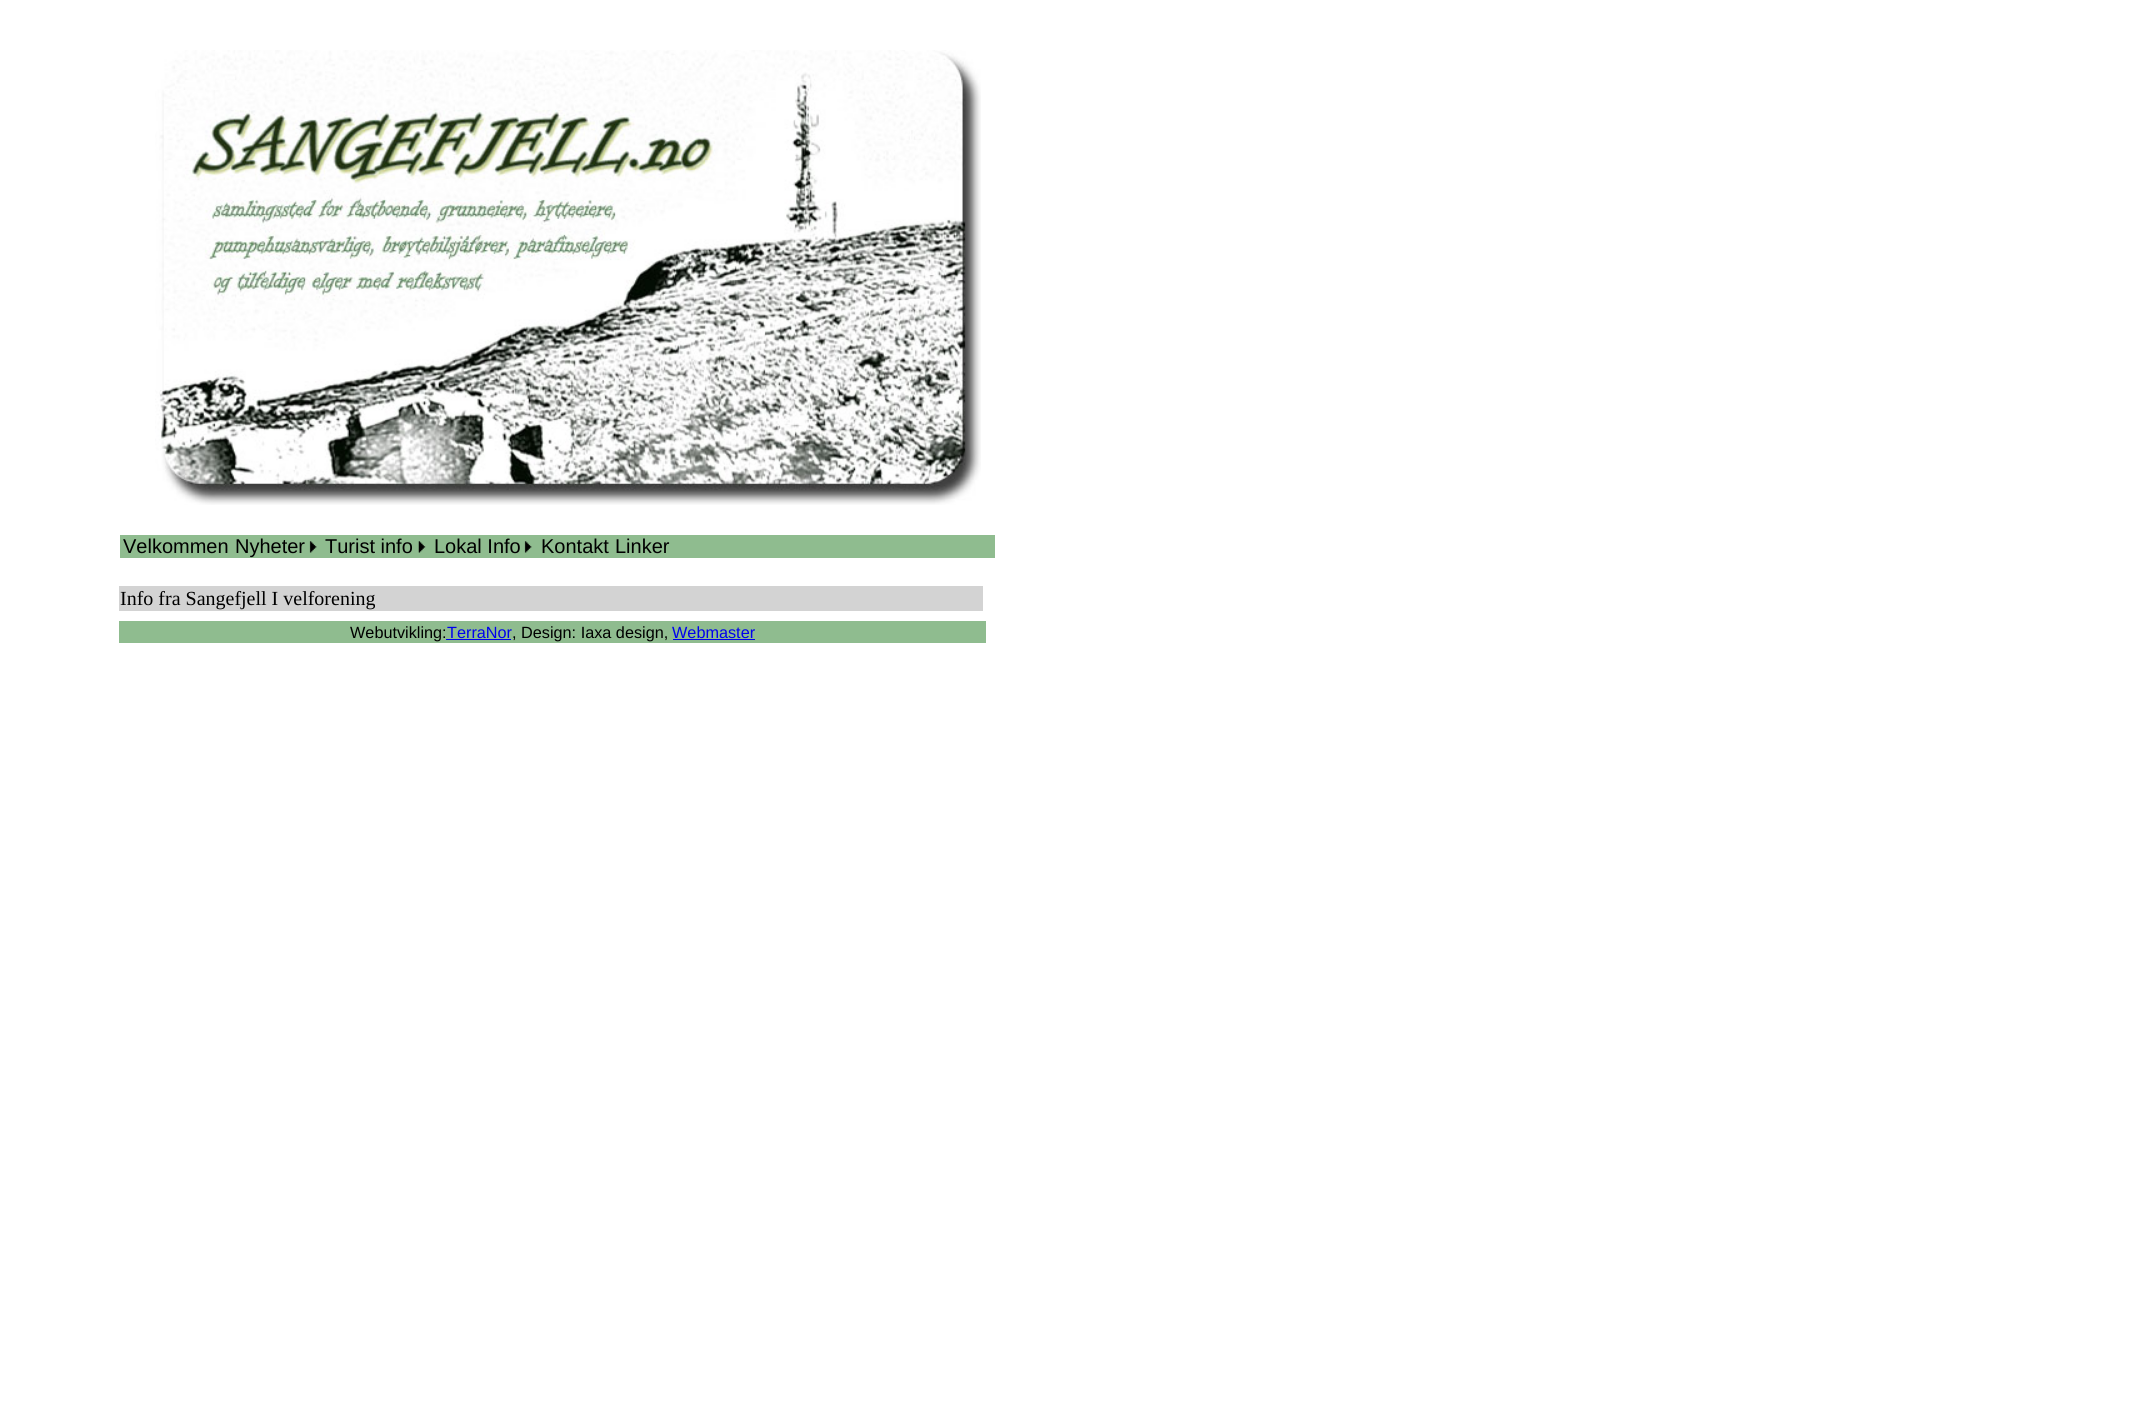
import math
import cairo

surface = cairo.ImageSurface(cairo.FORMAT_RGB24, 2150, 1416)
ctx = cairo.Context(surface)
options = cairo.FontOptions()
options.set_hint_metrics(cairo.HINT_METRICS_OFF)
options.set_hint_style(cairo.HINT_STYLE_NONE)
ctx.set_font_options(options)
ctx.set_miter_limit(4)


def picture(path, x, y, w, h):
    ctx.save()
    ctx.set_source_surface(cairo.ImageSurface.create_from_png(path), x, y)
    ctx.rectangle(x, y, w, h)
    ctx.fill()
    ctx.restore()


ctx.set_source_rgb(1, 1, 1)
ctx.paint()
picture("img1.png", 155, 50, 826, 455)
ctx.set_source_rgb(0.561, 0.737, 0.561)
ctx.rectangle(120, 535, 875, 23)
ctx.fill()
ctx.select_font_face("Liberation Sans")
ctx.set_font_size(20)
ctx.set_source_rgb(0, 0, 0)
ctx.move_to(123, 553)
ctx.show_text("Velkommen")
picture("img2.png", 309, 541, 8, 12)
ctx.move_to(235, 553)
ctx.show_text("Nyheter")
picture("img3.png", 418, 541, 8, 12)
ctx.move_to(325, 553)
ctx.show_text("Turist info")
picture("img4.png", 524, 541, 8, 12)
ctx.move_to(434, 553)
ctx.show_text("Lokal Info")
ctx.move_to(541, 553)
ctx.show_text("Kontakt")
ctx.move_to(615, 553)
ctx.show_text("Linker")
ctx.set_source_rgb(0.827, 0.827, 0.827)
ctx.rectangle(119, 586, 864, 25)
ctx.fill()
ctx.select_font_face("Liberation Serif")
ctx.set_source_rgb(0, 0, 0)
ctx.move_to(120, 605)
ctx.show_text("Info fra Sangefjell I velforening")
ctx.set_source_rgb(0.561, 0.737, 0.561)
ctx.rectangle(119, 621, 867, 22)
ctx.fill()
ctx.select_font_face("Liberation Sans")
ctx.set_font_size(16.25)
ctx.set_source_rgb(0, 0, 0)
ctx.move_to(350, 638)
ctx.show_text("Webutvikling:")
ctx.set_source_rgb(0, 0, 0.933)
ctx.move_to(447, 638)
ctx.show_text("TerraNor")
ctx.rectangle(446, 639, 65, 1)
ctx.fill()
ctx.set_source_rgb(0, 0, 0)
ctx.move_to(512, 638)
ctx.show_text(", Design: Iaxa design,")
ctx.set_source_rgb(0, 0, 0.933)
ctx.move_to(672, 638)
ctx.show_text("Webmaster")
ctx.rectangle(673, 639, 82, 1)
ctx.fill()
surface.write_to_png("page.png")
